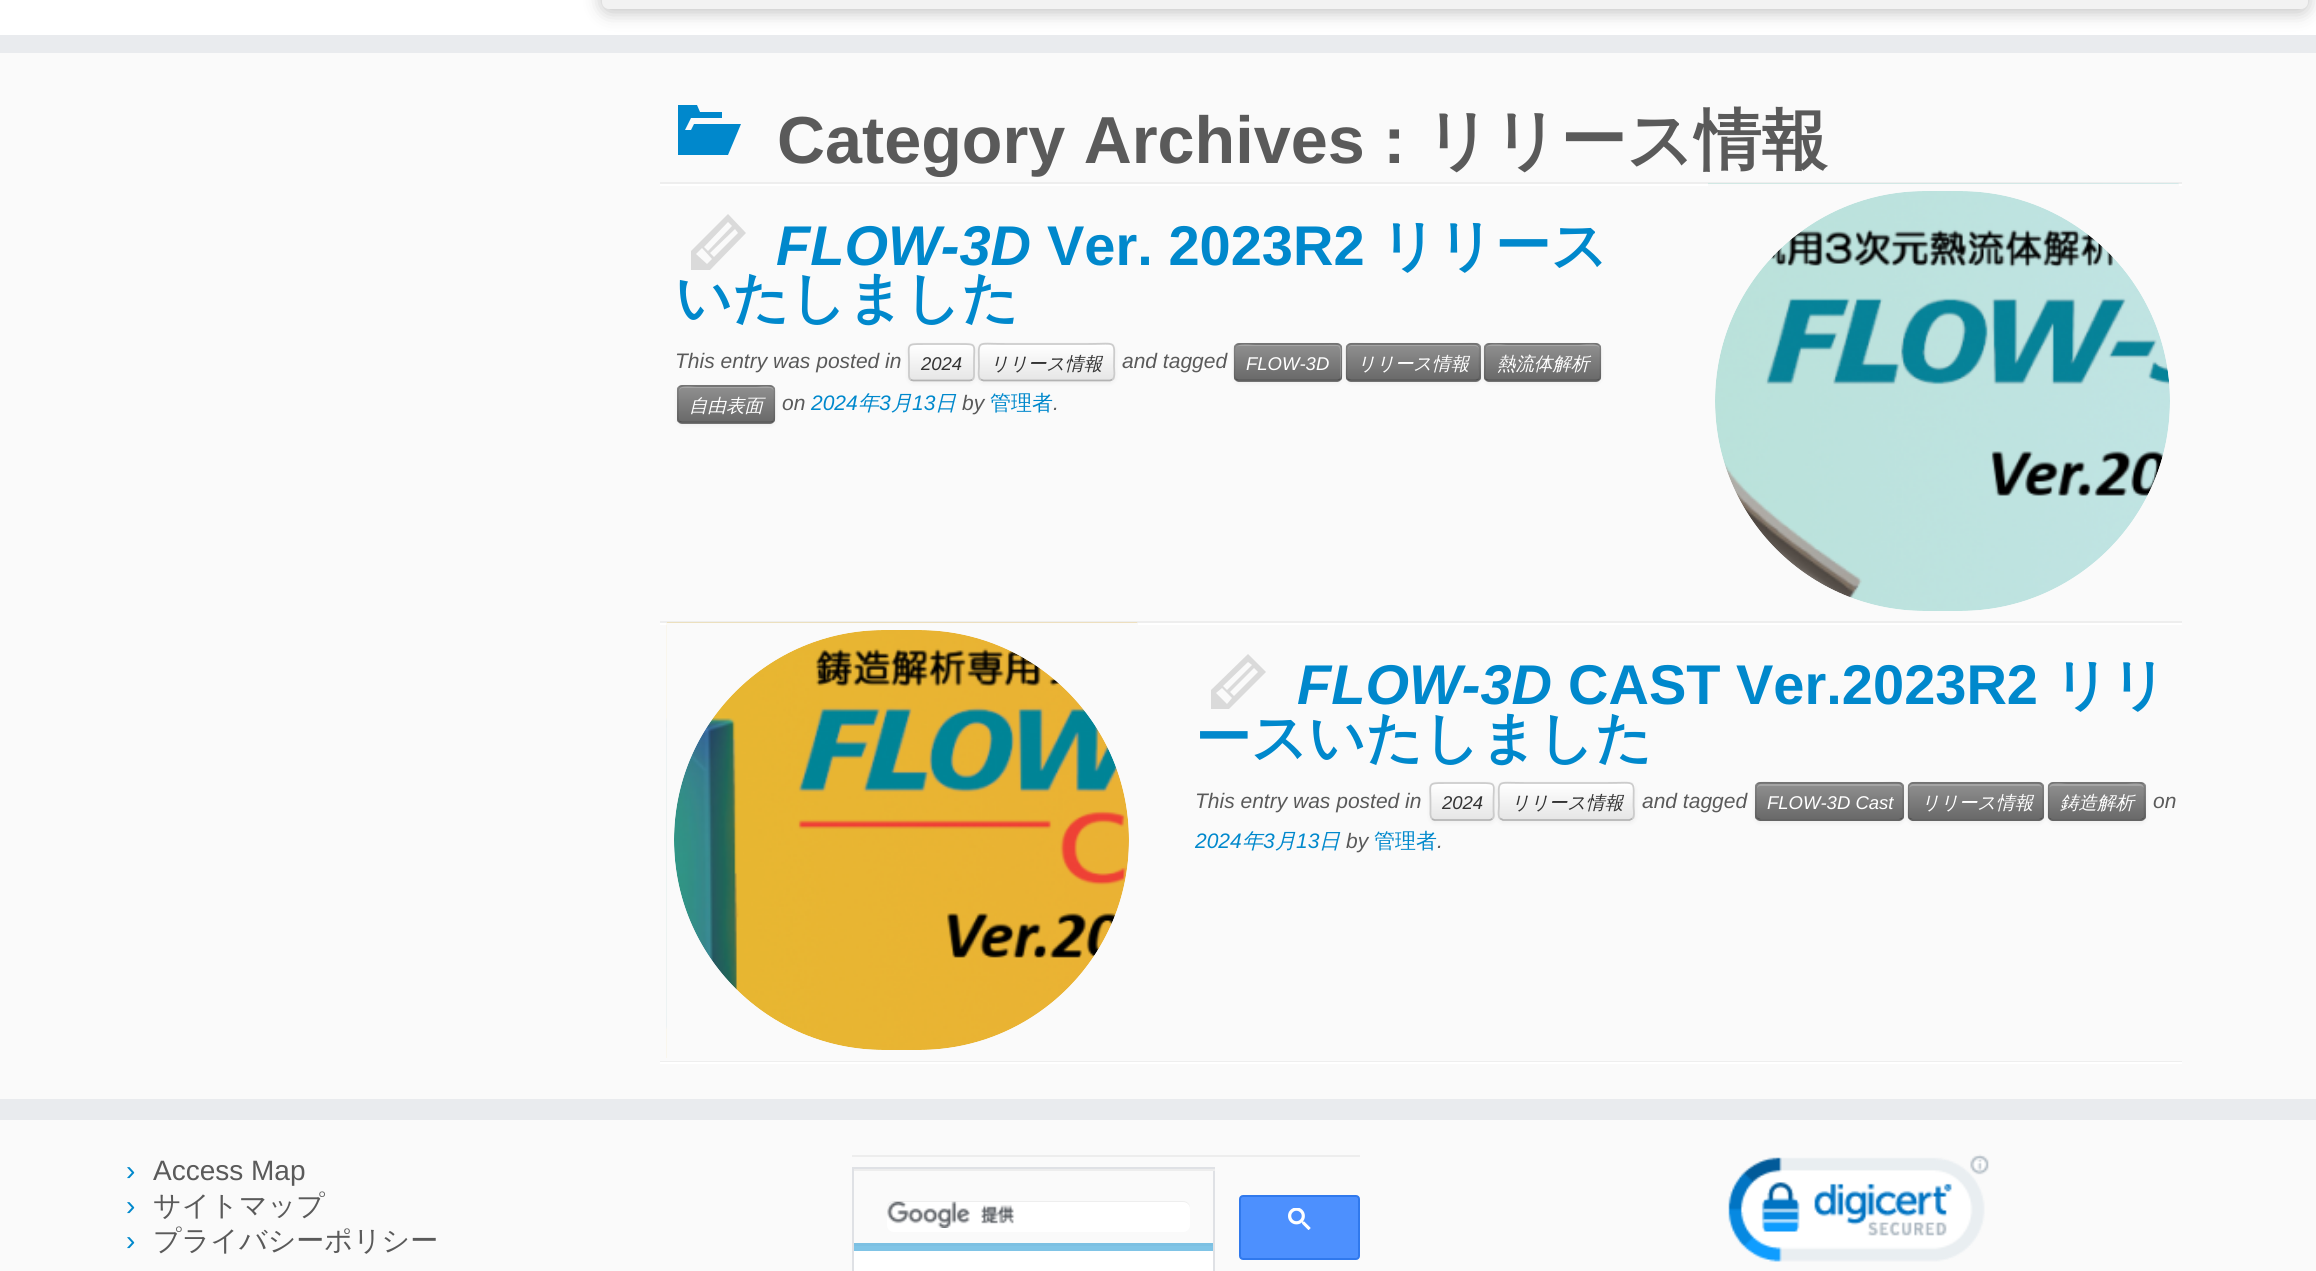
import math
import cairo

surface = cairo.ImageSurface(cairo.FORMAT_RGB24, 2316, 1271)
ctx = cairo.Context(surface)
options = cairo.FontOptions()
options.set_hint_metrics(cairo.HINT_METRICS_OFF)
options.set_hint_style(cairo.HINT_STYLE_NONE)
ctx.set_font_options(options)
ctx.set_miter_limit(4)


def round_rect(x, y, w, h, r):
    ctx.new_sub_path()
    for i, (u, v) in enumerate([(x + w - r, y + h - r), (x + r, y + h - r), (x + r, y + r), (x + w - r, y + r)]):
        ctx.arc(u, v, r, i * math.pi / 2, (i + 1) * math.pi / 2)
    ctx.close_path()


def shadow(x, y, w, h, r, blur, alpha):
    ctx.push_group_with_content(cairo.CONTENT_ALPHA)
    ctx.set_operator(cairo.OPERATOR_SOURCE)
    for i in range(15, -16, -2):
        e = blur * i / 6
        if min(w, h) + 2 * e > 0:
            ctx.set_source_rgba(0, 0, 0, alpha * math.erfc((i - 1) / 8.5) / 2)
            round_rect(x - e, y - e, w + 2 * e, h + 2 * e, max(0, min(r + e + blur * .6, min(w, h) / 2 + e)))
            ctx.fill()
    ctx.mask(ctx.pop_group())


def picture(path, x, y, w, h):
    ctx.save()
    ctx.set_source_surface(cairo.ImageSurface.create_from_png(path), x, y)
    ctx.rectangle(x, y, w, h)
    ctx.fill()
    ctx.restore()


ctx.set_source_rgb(0.98, 0.98, 0.98)
ctx.paint()
ctx.set_source_rgb(1, 1, 1)
ctx.rectangle(0, 0, 2316, 35)
ctx.fill()
ctx.set_source_rgb(0.914, 0.918, 0.933)
ctx.rectangle(0, 35, 2316, 18)
ctx.fill()
ctx.select_font_face("WenQuanYi Zen Hei", cairo.FONT_SLANT_NORMAL, cairo.FONT_WEIGHT_BOLD)
ctx.set_font_size(66.5)
ctx.set_source_rgb(0.353, 0.353, 0.353)
ctx.move_to(1424, 163)
ctx.show_text("リリース情報")
ctx.set_source_rgb(0.933, 0.933, 0.933)
ctx.rectangle(660, 182, 1522, 2)
ctx.fill()
ctx.set_source_rgb(1, 1, 1)
ctx.rectangle(660, 184, 1522, 2)
ctx.fill()
ctx.set_font_size(56)
ctx.set_source_rgb(0, 0.533, 0.8)
ctx.move_to(1380, 265)
ctx.show_text("リリース")
ctx.set_source_rgb(0, 0, 0)
shadow(1234, 345, 108, 38, 5, 2, 0.05)
ctx.set_source_rgb(0.502, 0.502, 0.502)
round_rect(1234, 343, 108, 39, 5)
ctx.fill()
ctx.save()
round_rect(1234, 343, 108, 39, 5)
ctx.clip()
gradient = cairo.LinearGradient(1288, 345, 1288, 380)
gradient.add_color_stop_rgba(0, 0.561, 0.561, 0.561, 1)
gradient.add_color_stop_rgba(1, 0.412, 0.412, 0.412, 1)
ctx.set_source(gradient)
ctx.rectangle(1234, 345, 108, 35)
ctx.fill()
ctx.restore()
ctx.set_source_rgba(1, 1, 1, 0.2)
ctx.new_path()
ctx.move_to(1239, 346)
ctx.line_to(1337, 346)
ctx.curve_to(1341, 346, 1340, 353, 1340, 355)
ctx.line_to(1340, 379)
ctx.curve_to(1342, 376, 1341, 366, 1341, 362)
ctx.curve_to(1341, 342, 1344, 345, 1321, 345)
ctx.line_to(1256, 345)
ctx.curve_to(1252, 345, 1236, 341, 1236, 350)
ctx.curve_to(1236, 348, 1237, 346, 1239, 346)
ctx.close_path()
ctx.fill()
ctx.new_path()
ctx.move_to(1340, 379.5)
ctx.line_to(1337.5, 380.5)
ctx.line_to(1238.5, 380.5)
ctx.line_to(1236, 379.5)
ctx.set_source_rgba(0, 0, 0, 0.25)
ctx.set_line_width(1.8)
ctx.stroke()
ctx.new_path()
ctx.move_to(1236, 379.5)
ctx.curve_to(1233, 376.5, 1234.5, 370, 1234.5, 367)
ctx.curve_to(1234.5, 341, 1230, 344, 1255.5, 344)
ctx.line_to(1320.5, 344)
ctx.curve_to(1344, 344, 1341.5, 340.5, 1341.5, 362)
ctx.line_to(1341.5, 371.5)
ctx.curve_to(1341.5, 374, 1342, 377.5, 1340, 379.5)
ctx.set_source_rgba(0, 0, 0, 0.1)
ctx.stroke()
ctx.set_source_rgb(0, 0, 0)
shadow(1346, 345, 135, 38, 5, 2, 0.05)
ctx.set_source_rgb(0.502, 0.502, 0.502)
round_rect(1346, 343, 135, 39, 5)
ctx.fill()
ctx.save()
round_rect(1346, 343, 135, 39, 5)
ctx.clip()
gradient = cairo.LinearGradient(1413, 345, 1413, 380)
gradient.add_color_stop_rgba(0, 0.561, 0.561, 0.561, 1)
gradient.add_color_stop_rgba(1, 0.412, 0.412, 0.412, 1)
ctx.set_source(gradient)
ctx.rectangle(1346, 345, 135, 35)
ctx.fill()
ctx.restore()
ctx.set_source_rgb(0.647, 0.647, 0.647)
ctx.new_path()
ctx.move_to(1351, 346)
ctx.line_to(1475, 346)
ctx.curve_to(1477, 346, 1479, 348, 1479, 350)
ctx.line_to(1479, 349)
ctx.curve_to(1479, 347, 1477, 345, 1475, 345)
ctx.line_to(1352, 345)
ctx.curve_to(1350, 345, 1348, 347, 1348, 349)
ctx.line_to(1348, 350)
ctx.curve_to(1348, 348, 1349, 346, 1351, 346)
ctx.close_path()
ctx.fill()
ctx.new_path()
ctx.move_to(1478.5, 379.5)
ctx.line_to(1475.5, 380.5)
ctx.line_to(1371.5, 380.5)
ctx.line_to(1351, 380.5)
ctx.line_to(1348, 379.5)
ctx.set_source_rgba(0, 0, 0, 0.25)
ctx.stroke()
ctx.new_path()
ctx.move_to(1348, 379.5)
ctx.curve_to(1345, 376.5, 1346.5, 370, 1346.5, 367)
ctx.curve_to(1346.5, 339, 1342, 344, 1371.5, 344)
ctx.line_to(1454.5, 344)
ctx.curve_to(1484, 344, 1479.5, 339, 1479.5, 367)
ctx.curve_to(1479.5, 370, 1481, 376.5, 1478.5, 379.5)
ctx.set_source_rgba(0, 0, 0, 0.1)
ctx.stroke()
ctx.set_source_rgb(0, 0, 0)
shadow(1484, 345, 117, 38, 5, 2, 0.05)
ctx.set_source_rgb(0.502, 0.502, 0.502)
round_rect(1484, 343, 117, 39, 5)
ctx.fill()
ctx.save()
round_rect(1484, 343, 117, 39, 5)
ctx.clip()
gradient = cairo.LinearGradient(1543, 345, 1543, 380)
gradient.add_color_stop_rgba(0, 0.561, 0.561, 0.561, 1)
gradient.add_color_stop_rgba(1, 0.412, 0.412, 0.412, 1)
ctx.set_source(gradient)
ctx.rectangle(1484, 345, 117, 35)
ctx.fill()
ctx.restore()
ctx.set_source_rgba(1, 1, 1, 0.2)
ctx.new_path()
ctx.move_to(1489, 346)
ctx.line_to(1596, 346)
ctx.curve_to(1598, 346, 1600, 348, 1600, 350)
ctx.curve_to(1600, 340, 1582, 345, 1578, 345)
ctx.line_to(1508, 345)
ctx.curve_to(1504, 345, 1486, 340, 1486, 350)
ctx.curve_to(1486, 348, 1487, 346, 1489, 346)
ctx.close_path()
ctx.fill()
ctx.new_path()
ctx.move_to(1599, 379.5)
ctx.curve_to(1598.5, 380, 1597, 380.5, 1596, 380.5)
ctx.line_to(1489, 380.5)
ctx.curve_to(1488, 380.5, 1487, 380, 1486, 379.5)
ctx.set_source_rgba(0, 0, 0, 0.25)
ctx.stroke()
ctx.new_path()
ctx.move_to(1486, 379.5)
ctx.curve_to(1483.5, 376.5, 1485, 370, 1485, 367)
ctx.curve_to(1485, 340.5, 1480, 344, 1507, 344)
ctx.line_to(1578, 344)
ctx.curve_to(1603, 344, 1600.5, 340, 1600.5, 362)
ctx.line_to(1600.5, 371.5)
ctx.curve_to(1600.5, 374, 1601, 377.5, 1599, 379.5)
ctx.set_source_rgba(0, 0, 0, 0.1)
ctx.stroke()
ctx.select_font_face("WenQuanYi Zen Hei Medium", cairo.FONT_SLANT_ITALIC)
ctx.set_font_size(18.5)
ctx.set_source_rgb(1, 1, 1)
ctx.move_to(1497, 370)
ctx.show_text("熱流体解析")
picture("img1.png", 1708, 183, 471, 428)
ctx.set_source_rgb(0.933, 0.933, 0.933)
ctx.rectangle(660, 621, 1522, 2)
ctx.fill()
ctx.set_source_rgb(1, 1, 1)
ctx.rectangle(660, 623, 1522, 2)
ctx.fill()
ctx.select_font_face("Liberation Sans", cairo.FONT_SLANT_ITALIC, cairo.FONT_WEIGHT_BOLD)
ctx.set_font_size(56)
ctx.set_source_rgb(0, 0.533, 0.8)
ctx.move_to(1297, 704)
ctx.show_text("FLOW-3D")
ctx.select_font_face("Liberation Sans", cairo.FONT_SLANT_NORMAL, cairo.FONT_WEIGHT_BOLD)
ctx.move_to(1568, 704)
ctx.show_text("CAST Ver.2023R2")
ctx.select_font_face("WenQuanYi Zen Hei", cairo.FONT_SLANT_NORMAL, cairo.FONT_WEIGHT_BOLD)
ctx.move_to(2053, 704)
ctx.show_text("リリ")
ctx.move_to(1195, 757)
ctx.show_text("ースいたしました")
ctx.set_source_rgb(0, 0, 0)
shadow(1430, 784, 65, 39, 5, 2, 0.05)
ctx.set_source_rgb(0.961, 0.961, 0.961)
round_rect(1430, 782, 65, 39, 5)
ctx.fill()
ctx.save()
round_rect(1430, 782, 65, 39, 5)
ctx.clip()
gradient = cairo.LinearGradient(1462, 784, 1462, 819)
gradient.add_color_stop_rgba(0, 1, 1, 1, 1)
gradient.add_color_stop_rgba(1, 0.902, 0.902, 0.902, 1)
ctx.set_source(gradient)
ctx.rectangle(1430, 784, 65, 35)
ctx.fill()
ctx.restore()
ctx.new_path()
ctx.move_to(1492.5, 818.5)
ctx.curve_to(1491.5, 819.5, 1490.5, 820, 1489, 820)
ctx.line_to(1435, 820)
ctx.curve_to(1434, 820, 1432.5, 819.5, 1432, 818.5)
ctx.set_source_rgb(0.702, 0.702, 0.702)
ctx.stroke()
ctx.new_path()
ctx.move_to(1432, 818.5)
ctx.curve_to(1430, 816.5, 1430.5, 813, 1430.5, 811)
ctx.line_to(1430.5, 801.5)
ctx.curve_to(1430.5, 783.5, 1427, 783, 1444, 783)
ctx.line_to(1480, 783)
ctx.curve_to(1497.5, 783, 1493.5, 783.5, 1493.5, 801.5)
ctx.line_to(1493.5, 811)
ctx.curve_to(1493.5, 813, 1494.5, 816.5, 1492.5, 818.5)
ctx.set_source_rgb(0.8, 0.8, 0.8)
ctx.stroke()
ctx.set_source_rgb(0, 0, 0)
shadow(1498, 784, 137, 39, 5, 2, 0.05)
ctx.set_source_rgb(0.961, 0.961, 0.961)
round_rect(1498, 782, 137, 39, 5)
ctx.fill()
ctx.save()
round_rect(1498, 782, 137, 39, 5)
ctx.clip()
gradient = cairo.LinearGradient(1566, 784, 1566, 819)
gradient.add_color_stop_rgba(0, 1, 1, 1, 1)
gradient.add_color_stop_rgba(1, 0.902, 0.902, 0.902, 1)
ctx.set_source(gradient)
ctx.rectangle(1498, 784, 137, 35)
ctx.fill()
ctx.restore()
ctx.new_path()
ctx.move_to(1632.5, 818.5)
ctx.line_to(1629.5, 820)
ctx.line_to(1524, 820)
ctx.line_to(1503, 820)
ctx.line_to(1500, 818.5)
ctx.set_source_rgb(0.702, 0.702, 0.702)
ctx.stroke()
ctx.new_path()
ctx.move_to(1500, 818.5)
ctx.curve_to(1497.5, 816, 1499, 809, 1499, 806)
ctx.curve_to(1499, 778.5, 1494.5, 783, 1524, 783)
ctx.line_to(1608, 783)
ctx.curve_to(1638, 783, 1633.5, 778.5, 1633.5, 806)
ctx.curve_to(1633.5, 809, 1635, 816, 1632.5, 818.5)
ctx.set_source_rgb(0.8, 0.8, 0.8)
ctx.stroke()
ctx.select_font_face("Liberation Sans", cairo.FONT_SLANT_ITALIC)
ctx.set_font_size(21)
ctx.set_source_rgb(0.353, 0.353, 0.353)
ctx.move_to(1642, 808)
ctx.show_text("and tagged")
ctx.set_source_rgb(0, 0, 0)
shadow(1755, 784, 149, 39, 5, 2, 0.05)
ctx.set_source_rgb(0.502, 0.502, 0.502)
round_rect(1755, 782, 149, 39, 5)
ctx.fill()
ctx.save()
round_rect(1755, 782, 149, 39, 5)
ctx.clip()
gradient = cairo.LinearGradient(1830, 784, 1830, 819)
gradient.add_color_stop_rgba(0, 0.561, 0.561, 0.561, 1)
gradient.add_color_stop_rgba(1, 0.412, 0.412, 0.412, 1)
ctx.set_source(gradient)
ctx.rectangle(1755, 784, 149, 35)
ctx.fill()
ctx.restore()
ctx.set_source_rgb(0.643, 0.643, 0.643)
ctx.new_path()
ctx.move_to(1760, 786)
ctx.line_to(1899, 786)
ctx.curve_to(1901, 786, 1902, 787, 1902, 789)
ctx.line_to(1902, 788)
ctx.curve_to(1902, 786, 1900, 784, 1898, 784)
ctx.line_to(1761, 784)
ctx.curve_to(1759, 784, 1757, 786, 1757, 788)
ctx.line_to(1757, 789)
ctx.curve_to(1757, 787, 1759, 786, 1760, 786)
ctx.close_path()
ctx.fill()
ctx.new_path()
ctx.move_to(1902, 818.5)
ctx.line_to(1899, 820)
ctx.line_to(1783.5, 820)
ctx.line_to(1760.5, 820)
ctx.line_to(1757.5, 818.5)
ctx.set_source_rgba(0, 0, 0, 0.25)
ctx.stroke()
ctx.new_path()
ctx.move_to(1757.5, 818.5)
ctx.curve_to(1754.5, 816, 1756, 809, 1756, 806)
ctx.curve_to(1756, 777.5, 1752, 783, 1783.5, 783)
ctx.line_to(1875.5, 783)
ctx.curve_to(1907.5, 783, 1903, 777.5, 1903, 806)
ctx.curve_to(1903, 809, 1904.5, 816, 1902, 818.5)
ctx.set_source_rgba(0, 0, 0, 0.1)
ctx.stroke()
ctx.set_source_rgb(0, 0, 0)
shadow(1908, 784, 136, 39, 5, 2, 0.05)
ctx.set_source_rgb(0.502, 0.502, 0.502)
round_rect(1908, 782, 136, 39, 5)
ctx.fill()
ctx.save()
round_rect(1908, 782, 136, 39, 5)
ctx.clip()
gradient = cairo.LinearGradient(1976, 784, 1976, 819)
gradient.add_color_stop_rgba(0, 0.561, 0.561, 0.561, 1)
gradient.add_color_stop_rgba(1, 0.412, 0.412, 0.412, 1)
ctx.set_source(gradient)
ctx.rectangle(1908, 784, 136, 35)
ctx.fill()
ctx.restore()
ctx.set_source_rgb(0.643, 0.643, 0.643)
ctx.new_path()
ctx.move_to(1913, 786)
ctx.line_to(2039, 786)
ctx.curve_to(2041, 786, 2042, 787, 2042, 789)
ctx.line_to(2042, 788)
ctx.curve_to(2042, 786, 2040, 784, 2038, 784)
ctx.line_to(1913, 784)
ctx.curve_to(1911, 784, 1909, 786, 1909, 788)
ctx.line_to(1909, 789)
ctx.curve_to(1909, 787, 1911, 786, 1913, 786)
ctx.close_path()
ctx.fill()
ctx.new_path()
ctx.move_to(2042, 818.5)
ctx.line_to(2039, 820)
ctx.line_to(1912.5, 820)
ctx.line_to(1909.5, 818.5)
ctx.set_source_rgba(0, 0, 0, 0.25)
ctx.stroke()
ctx.new_path()
ctx.move_to(1909.5, 818.5)
ctx.curve_to(1907, 816, 1908.5, 809, 1908.5, 806)
ctx.curve_to(1908.5, 778.5, 1904, 783, 1934, 783)
ctx.line_to(2018, 783)
ctx.curve_to(2047.5, 783, 2043, 778.5, 2043, 806)
ctx.curve_to(2043, 809, 2044.5, 816, 2042, 818.5)
ctx.set_source_rgba(0, 0, 0, 0.1)
ctx.stroke()
ctx.set_source_rgb(0, 0, 0)
shadow(2048, 784, 98, 39, 5, 2, 0.05)
ctx.set_source_rgb(0.502, 0.502, 0.502)
round_rect(2048, 782, 98, 39, 5)
ctx.fill()
ctx.save()
round_rect(2048, 782, 98, 39, 5)
ctx.clip()
gradient = cairo.LinearGradient(2097, 784, 2097, 819)
gradient.add_color_stop_rgba(0, 0.561, 0.561, 0.561, 1)
gradient.add_color_stop_rgba(1, 0.412, 0.412, 0.412, 1)
ctx.set_source(gradient)
ctx.rectangle(2048, 784, 98, 35)
ctx.fill()
ctx.restore()
ctx.set_source_rgba(1, 1, 1, 0.2)
ctx.new_path()
ctx.move_to(2053, 786)
ctx.line_to(2140, 786)
ctx.curve_to(2142, 786, 2144, 787, 2144, 789)
ctx.curve_to(2144, 780, 2130, 784, 2126, 784)
ctx.line_to(2068, 784)
ctx.curve_to(2063, 784, 2049, 780, 2049, 789)
ctx.curve_to(2049, 787, 2051, 786, 2053, 786)
ctx.close_path()
ctx.fill()
ctx.new_path()
ctx.move_to(2143.5, 818.5)
ctx.curve_to(2142.5, 819.5, 2141.5, 820, 2140, 820)
ctx.line_to(2053, 820)
ctx.curve_to(2051.5, 820, 2050.5, 819.5, 2049.5, 818.5)
ctx.set_source_rgba(0, 0, 0, 0.25)
ctx.stroke()
ctx.new_path()
ctx.move_to(2049.5, 818.5)
ctx.curve_to(2047.5, 816.5, 2048.5, 813, 2048.5, 811)
ctx.line_to(2048.5, 801.5)
ctx.curve_to(2048.5, 780.5, 2045.5, 783, 2067.5, 783)
ctx.line_to(2125.5, 783)
ctx.curve_to(2147.5, 783, 2144.5, 780.5, 2144.5, 801.5)
ctx.line_to(2144.5, 811)
ctx.curve_to(2144.5, 813, 2145.5, 816.5, 2143.5, 818.5)
ctx.set_source_rgba(0, 0, 0, 0.1)
ctx.stroke()
ctx.save()
ctx.rectangle(1708, 184, 471, 437)
ctx.clip()
round_rect(1624, 100, 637, 602, 301)
ctx.set_source_rgb(0.98, 0.98, 0.98)
ctx.set_line_width(182)
ctx.stroke()
round_rect(1624, 100, 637, 602, 301)
ctx.stroke()
ctx.restore()
ctx.set_source_rgb(0, 0, 0)
shadow(602, -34, 1706, 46, 7, 9, 0.25)
gradient = cairo.LinearGradient(1455, -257, 1455, 9)
gradient.add_color_stop_rgba(0, 1, 1, 1, 1)
gradient.add_color_stop_rgba(1, 0.949, 0.949, 0.949, 1)
ctx.set_source(gradient)
round_rect(602, -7, 1706, 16, 7)
ctx.fill()
ctx.set_source_rgb(0, 0.533, 0.8)
ctx.new_path()
ctx.move_to(678, 155)
ctx.line_to(678, 105)
ctx.line_to(697, 105)
ctx.line_to(700, 112)
ctx.line_to(722, 112)
ctx.line_to(722, 118)
ctx.line_to(691, 118)
ctx.line_to(685, 130)
ctx.line_to(691, 130)
ctx.line_to(694, 124)
ctx.line_to(741, 124)
ctx.line_to(728, 155)
ctx.close_path()
ctx.fill()
ctx.select_font_face("Liberation Sans", cairo.FONT_SLANT_NORMAL, cairo.FONT_WEIGHT_BOLD)
ctx.set_font_size(66.5)
ctx.set_source_rgb(0.353, 0.353, 0.353)
ctx.move_to(777, 163)
ctx.show_text("Category Archives :")
ctx.set_source_rgb(0.855, 0.855, 0.855)
ctx.new_path()
ctx.move_to(691, 270)
ctx.line_to(691, 251)
ctx.line_to(728, 214)
ctx.line_to(746, 233)
ctx.line_to(710, 270)
ctx.close_path()
ctx.move_to(696, 254)
ctx.line_to(707, 264)
ctx.line_to(712, 259)
ctx.line_to(702, 248)
ctx.close_path()
ctx.move_to(704, 247)
ctx.line_to(708, 251)
ctx.line_to(732, 226)
ctx.line_to(728, 222)
ctx.close_path()
ctx.move_to(710, 253)
ctx.line_to(714, 257)
ctx.line_to(738, 233)
ctx.line_to(735, 229)
ctx.close_path()
ctx.fill()
ctx.select_font_face("Liberation Sans", cairo.FONT_SLANT_ITALIC, cairo.FONT_WEIGHT_BOLD)
ctx.set_font_size(56)
ctx.set_source_rgb(0, 0.533, 0.8)
ctx.move_to(776, 265)
ctx.show_text("FLOW-3D")
ctx.select_font_face("Liberation Sans", cairo.FONT_SLANT_NORMAL, cairo.FONT_WEIGHT_BOLD)
ctx.move_to(1047, 265)
ctx.show_text("Ver. 2023R2")
ctx.select_font_face("WenQuanYi Zen Hei", cairo.FONT_SLANT_NORMAL, cairo.FONT_WEIGHT_BOLD)
ctx.move_to(675, 317)
ctx.show_text("いたしました")
ctx.select_font_face("Liberation Sans", cairo.FONT_SLANT_ITALIC)
ctx.set_font_size(21)
ctx.set_source_rgb(0.353, 0.353, 0.353)
ctx.move_to(675, 368)
ctx.show_text("This entry was posted in")
ctx.set_source_rgb(0, 0, 0)
shadow(908, 345, 67, 38, 5, 2, 0.05)
ctx.set_source_rgb(0.961, 0.961, 0.961)
round_rect(908, 343, 67, 39, 5)
ctx.fill()
ctx.save()
round_rect(908, 343, 67, 39, 5)
ctx.clip()
gradient = cairo.LinearGradient(942, 345, 942, 380)
gradient.add_color_stop_rgba(0, 1, 1, 1, 1)
gradient.add_color_stop_rgba(1, 0.902, 0.902, 0.902, 1)
ctx.set_source(gradient)
ctx.rectangle(908, 345, 67, 35)
ctx.fill()
ctx.restore()
ctx.new_path()
ctx.move_to(972.5, 379.5)
ctx.curve_to(972, 380, 970.5, 380.5, 969.5, 380.5)
ctx.line_to(913.5, 380.5)
ctx.curve_to(912.5, 380.5, 911, 380, 910.5, 379.5)
ctx.set_source_rgb(0.702, 0.702, 0.702)
ctx.stroke()
ctx.new_path()
ctx.move_to(910.5, 379.5)
ctx.curve_to(908.5, 377.5, 909, 374, 909, 371.5)
ctx.line_to(909, 362)
ctx.curve_to(909, 344, 905.5, 344, 923, 344)
ctx.line_to(960, 344)
ctx.curve_to(977.5, 344, 974, 344, 974, 362)
ctx.line_to(974, 371.5)
ctx.curve_to(974, 374, 974.5, 377.5, 972.5, 379.5)
ctx.set_source_rgb(0.8, 0.8, 0.8)
ctx.stroke()
ctx.set_font_size(18.5)
ctx.set_source_rgb(0.2, 0.2, 0.2)
ctx.move_to(921, 370)
ctx.show_text("2024")
ctx.set_source_rgb(0, 0, 0)
shadow(978, 345, 137, 38, 5, 2, 0.05)
ctx.set_source_rgb(0.961, 0.961, 0.961)
round_rect(978, 343, 137, 39, 5)
ctx.fill()
ctx.save()
round_rect(978, 343, 137, 39, 5)
ctx.clip()
gradient = cairo.LinearGradient(1047, 345, 1047, 380)
gradient.add_color_stop_rgba(0, 1, 1, 1, 1)
gradient.add_color_stop_rgba(1, 0.902, 0.902, 0.902, 1)
ctx.set_source(gradient)
ctx.rectangle(978, 345, 137, 35)
ctx.fill()
ctx.restore()
ctx.new_path()
ctx.move_to(1112.5, 379.5)
ctx.line_to(1110, 380.5)
ctx.line_to(1004.5, 380.5)
ctx.line_to(983.5, 380.5)
ctx.line_to(980.5, 379.5)
ctx.set_source_rgb(0.702, 0.702, 0.702)
ctx.stroke()
ctx.new_path()
ctx.move_to(980.5, 379.5)
ctx.curve_to(977.5, 376.5, 979, 370, 979, 367)
ctx.curve_to(979, 339, 974.5, 344, 1004.5, 344)
ctx.line_to(1088.5, 344)
ctx.curve_to(1118.5, 344, 1114, 339, 1114, 367)
ctx.curve_to(1114, 370, 1115.5, 376.5, 1112.5, 379.5)
ctx.set_source_rgb(0.8, 0.8, 0.8)
ctx.stroke()
ctx.select_font_face("WenQuanYi Zen Hei Medium", cairo.FONT_SLANT_ITALIC)
ctx.set_source_rgb(0.2, 0.2, 0.2)
ctx.move_to(990, 370)
ctx.show_text("リリース情報")
ctx.select_font_face("Liberation Sans", cairo.FONT_SLANT_ITALIC)
ctx.set_font_size(21)
ctx.set_source_rgb(0.353, 0.353, 0.353)
ctx.move_to(1122, 368)
ctx.show_text("and tagged")
ctx.set_font_size(18.5)
ctx.set_source_rgb(1, 1, 1)
ctx.move_to(1246, 370)
ctx.show_text("FLOW-3D")
ctx.select_font_face("WenQuanYi Zen Hei Medium", cairo.FONT_SLANT_ITALIC)
ctx.move_to(1357, 370)
ctx.show_text("リリース情報")
ctx.set_source_rgb(0, 0, 0)
shadow(677, 387, 98, 38, 5, 2, 0.05)
ctx.set_source_rgb(0.502, 0.502, 0.502)
round_rect(677, 385, 98, 39, 5)
ctx.fill()
ctx.save()
round_rect(677, 385, 98, 39, 5)
ctx.clip()
gradient = cairo.LinearGradient(726, 387, 726, 422)
gradient.add_color_stop_rgba(0, 0.561, 0.561, 0.561, 1)
gradient.add_color_stop_rgba(1, 0.412, 0.412, 0.412, 1)
ctx.set_source(gradient)
ctx.rectangle(677, 387, 98, 35)
ctx.fill()
ctx.restore()
ctx.set_source_rgba(1, 1, 1, 0.2)
ctx.new_path()
ctx.move_to(682, 388)
ctx.line_to(770, 388)
ctx.curve_to(772, 388, 774, 390, 774, 392)
ctx.curve_to(774, 383, 760, 387, 756, 387)
ctx.line_to(698, 387)
ctx.curve_to(693, 387, 679, 383, 679, 392)
ctx.curve_to(679, 390, 681, 388, 682, 388)
ctx.close_path()
ctx.fill()
ctx.new_path()
ctx.move_to(773, 421.5)
ctx.curve_to(772.5, 422, 771, 422.5, 770, 422.5)
ctx.line_to(682.5, 422.5)
ctx.curve_to(681.5, 422.5, 680, 422, 679.5, 421.5)
ctx.set_source_rgba(0, 0, 0, 0.25)
ctx.stroke()
ctx.new_path()
ctx.move_to(679.5, 421.5)
ctx.curve_to(677.5, 419.5, 678, 416, 678, 413.5)
ctx.line_to(678, 404)
ctx.curve_to(678, 383, 675, 386, 697, 386)
ctx.line_to(755.5, 386)
ctx.curve_to(777.5, 386, 774.5, 383, 774.5, 404)
ctx.line_to(774.5, 413.5)
ctx.curve_to(774.5, 416, 775, 419.5, 773, 421.5)
ctx.set_source_rgba(0, 0, 0, 0.1)
ctx.stroke()
ctx.set_source_rgb(1, 1, 1)
ctx.move_to(689, 412)
ctx.show_text("自由表面")
ctx.select_font_face("Liberation Sans", cairo.FONT_SLANT_ITALIC)
ctx.set_font_size(21)
ctx.set_source_rgb(0.353, 0.353, 0.353)
ctx.move_to(782, 410)
ctx.show_text("on")
ctx.set_source_rgb(0, 0.533, 0.8)
ctx.move_to(811, 410)
ctx.show_text("2024")
ctx.select_font_face("WenQuanYi Zen Hei Medium", cairo.FONT_SLANT_ITALIC)
ctx.move_to(858, 410)
ctx.show_text("年")
ctx.select_font_face("Liberation Sans", cairo.FONT_SLANT_ITALIC)
ctx.move_to(879, 410)
ctx.show_text("3")
ctx.select_font_face("WenQuanYi Zen Hei Medium", cairo.FONT_SLANT_ITALIC)
ctx.move_to(891, 410)
ctx.show_text("月")
ctx.select_font_face("Liberation Sans", cairo.FONT_SLANT_ITALIC)
ctx.move_to(912, 410)
ctx.show_text("13")
ctx.select_font_face("WenQuanYi Zen Hei Medium", cairo.FONT_SLANT_ITALIC)
ctx.move_to(935, 410)
ctx.show_text("日")
ctx.select_font_face("Liberation Sans", cairo.FONT_SLANT_ITALIC)
ctx.set_source_rgb(0.353, 0.353, 0.353)
ctx.move_to(962, 410)
ctx.show_text("by")
ctx.select_font_face("WenQuanYi Zen Hei Medium")
ctx.set_source_rgb(0, 0.533, 0.8)
ctx.move_to(990, 410)
ctx.show_text("管理者")
ctx.select_font_face("Liberation Sans", cairo.FONT_SLANT_ITALIC)
ctx.set_source_rgb(0.353, 0.353, 0.353)
ctx.move_to(1053, 410)
ctx.show_text(".")
picture("img2.png", 666, 622, 472, 436)
ctx.set_source_rgb(0.855, 0.855, 0.855)
ctx.new_path()
ctx.move_to(1211, 709)
ctx.line_to(1211, 690)
ctx.line_to(1248, 654)
ctx.line_to(1266, 672)
ctx.line_to(1229, 709)
ctx.close_path()
ctx.move_to(1216, 693)
ctx.line_to(1227, 704)
ctx.line_to(1232, 698)
ctx.line_to(1222, 688)
ctx.close_path()
ctx.move_to(1223, 686)
ctx.line_to(1227, 690)
ctx.line_to(1252, 665)
ctx.line_to(1248, 662)
ctx.close_path()
ctx.move_to(1230, 692)
ctx.line_to(1234, 696)
ctx.line_to(1258, 672)
ctx.line_to(1254, 668)
ctx.close_path()
ctx.fill()
ctx.set_source_rgb(0.353, 0.353, 0.353)
ctx.move_to(1195, 808)
ctx.show_text("This entry was posted in")
ctx.set_source_rgb(0, 0.533, 0.8)
ctx.move_to(1195, 848)
ctx.show_text("2024")
ctx.select_font_face("WenQuanYi Zen Hei Medium", cairo.FONT_SLANT_ITALIC)
ctx.move_to(1242, 848)
ctx.show_text("年")
ctx.select_font_face("Liberation Sans", cairo.FONT_SLANT_ITALIC)
ctx.move_to(1263, 848)
ctx.show_text("3")
ctx.select_font_face("WenQuanYi Zen Hei Medium", cairo.FONT_SLANT_ITALIC)
ctx.move_to(1275, 848)
ctx.show_text("月")
ctx.select_font_face("Liberation Sans", cairo.FONT_SLANT_ITALIC)
ctx.move_to(1296, 848)
ctx.show_text("13")
ctx.set_source_rgb(0.933, 0.933, 0.933)
ctx.rectangle(660, 1061, 1522, 1)
ctx.fill()
ctx.set_source_rgb(1, 1, 1)
ctx.rectangle(660, 1062, 1522, 2)
ctx.fill()
ctx.set_source_rgb(0.914, 0.918, 0.933)
ctx.rectangle(0, 1099, 2316, 21)
ctx.fill()
ctx.set_source_rgb(0.929, 0.929, 0.929)
ctx.rectangle(852, 1155, 508, 2)
ctx.fill()
ctx.set_source_rgb(0.302, 0.565, 0.996)
round_rect(1240, 1196, 119, 63, 3)
ctx.fill_preserve()
ctx.set_source_rgb(0.188, 0.475, 0.929)
ctx.set_line_width(2)
ctx.stroke()
picture("img3.png", 1288, 1208, 23, 22)
ctx.set_source_rgb(1, 1, 1)
ctx.rectangle(854, 1251, 359, 20)
ctx.fill()
ctx.set_source_rgb(0.502, 0.769, 0.902)
ctx.rectangle(854, 1246, 359, 5)
ctx.fill()
ctx.rectangle(853, 1168, 361, 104)
ctx.set_source_rgb(0.875, 0.882, 0.898)
ctx.stroke()
ctx.set_source_rgb(0.929, 0.929, 0.929)
ctx.rectangle(854, 1169, 361, 2)
ctx.fill()
ctx.set_source_rgb(1, 1, 1)
round_rect(887, 1201, 303, 31, 7)
ctx.fill()
picture("img4.png", 887, 1201, 128, 27)
ctx.set_source_rgba(0, 0, 0, 0.07)
ctx.new_path()
ctx.move_to(894, 1202)
ctx.line_to(1183, 1202)
ctx.curve_to(1187, 1202, 1190, 1205, 1190, 1209)
ctx.line_to(1190, 1208)
ctx.curve_to(1190, 1204, 1187, 1201, 1183, 1201)
ctx.line_to(894, 1201)
ctx.curve_to(890, 1201, 887, 1204, 887, 1208)
ctx.line_to(887, 1209)
ctx.curve_to(887, 1205, 890, 1202, 894, 1202)
ctx.close_path()
ctx.fill()
ctx.save()
ctx.rectangle(667, 623, 471, 438)
ctx.clip()
round_rect(583, 539, 637, 602, 301)
ctx.set_source_rgb(0.98, 0.98, 0.98)
ctx.set_line_width(182)
ctx.stroke()
round_rect(583, 539, 637, 602, 301)
ctx.stroke()
ctx.restore()
ctx.set_font_size(18.5)
ctx.set_source_rgb(0.2, 0.2, 0.2)
ctx.move_to(1442, 809)
ctx.show_text("2024")
ctx.select_font_face("WenQuanYi Zen Hei Medium", cairo.FONT_SLANT_ITALIC)
ctx.move_to(1511, 809)
ctx.show_text("リリース情報")
ctx.select_font_face("Liberation Sans", cairo.FONT_SLANT_ITALIC)
ctx.set_source_rgb(1, 1, 1)
ctx.move_to(1767, 809)
ctx.show_text("FLOW-3D Cast")
ctx.select_font_face("WenQuanYi Zen Hei Medium", cairo.FONT_SLANT_ITALIC)
ctx.move_to(1921, 809)
ctx.show_text("リリース情報")
ctx.move_to(2060, 809)
ctx.show_text("鋳造解析")
ctx.select_font_face("Liberation Sans", cairo.FONT_SLANT_ITALIC)
ctx.set_font_size(21)
ctx.set_source_rgb(0.353, 0.353, 0.353)
ctx.move_to(2153, 808)
ctx.show_text("on")
ctx.select_font_face("WenQuanYi Zen Hei Medium", cairo.FONT_SLANT_ITALIC)
ctx.set_source_rgb(0, 0.533, 0.8)
ctx.move_to(1319, 848)
ctx.show_text("日")
ctx.select_font_face("Liberation Sans", cairo.FONT_SLANT_ITALIC)
ctx.set_source_rgb(0.353, 0.353, 0.353)
ctx.move_to(1346, 848)
ctx.show_text("by")
ctx.select_font_face("WenQuanYi Zen Hei Medium")
ctx.set_source_rgb(0, 0.533, 0.8)
ctx.move_to(1374, 848)
ctx.show_text("管理者")
ctx.select_font_face("Liberation Sans", cairo.FONT_SLANT_ITALIC)
ctx.set_source_rgb(0.353, 0.353, 0.353)
ctx.move_to(1437, 848)
ctx.show_text(".")
ctx.select_font_face("Liberation Sans")
ctx.set_font_size(28)
ctx.set_source_rgb(0, 0.533, 0.8)
ctx.move_to(126, 1180)
ctx.show_text("›")
ctx.set_source_rgb(0.353, 0.353, 0.353)
ctx.move_to(153, 1180)
ctx.show_text("Access Map")
ctx.set_source_rgb(0, 0.533, 0.8)
ctx.move_to(126, 1215)
ctx.show_text("›")
ctx.select_font_face("WenQuanYi Zen Hei Medium")
ctx.set_source_rgb(0.353, 0.353, 0.353)
ctx.move_to(153, 1215)
ctx.show_text("サイトマップ")
ctx.select_font_face("Liberation Sans")
ctx.set_source_rgb(0, 0.533, 0.8)
ctx.move_to(126, 1250)
ctx.show_text("›")
ctx.select_font_face("WenQuanYi Zen Hei Medium")
ctx.set_source_rgb(0.353, 0.353, 0.353)
ctx.move_to(153, 1250)
ctx.show_text("プライバシーポリシー")
ctx.set_source_rgb(0.486, 0.753, 0.886)
ctx.rectangle(854, 1243, 359, 3)
ctx.fill()
picture("img5.png", 1728, 1154, 261, 108)
surface.write_to_png("page.png")
